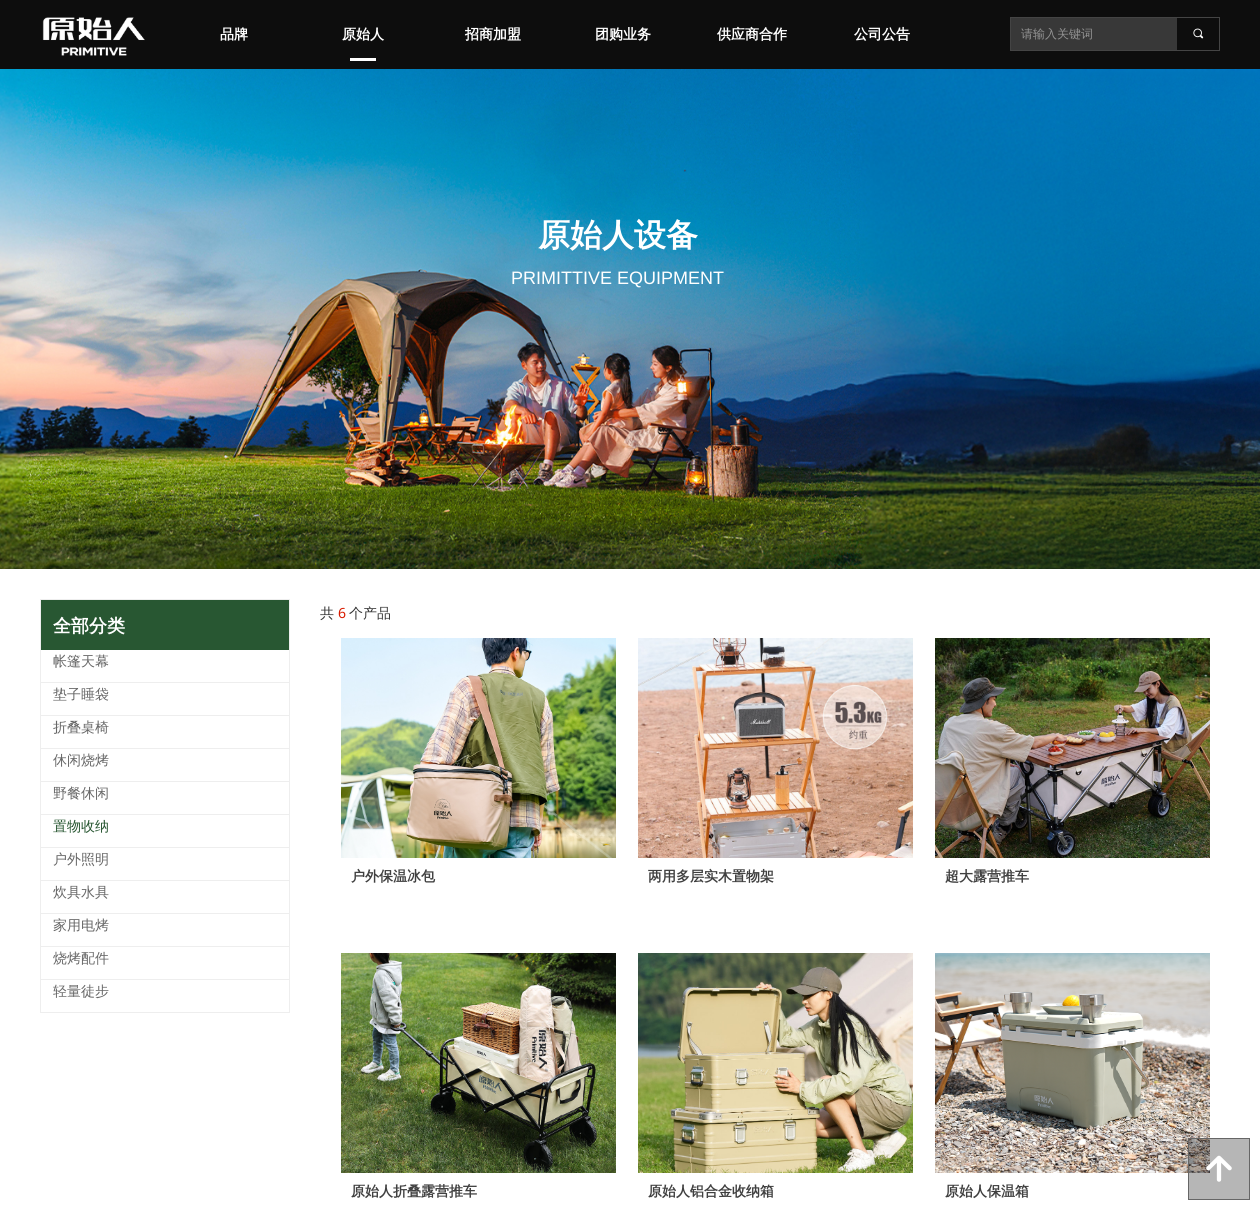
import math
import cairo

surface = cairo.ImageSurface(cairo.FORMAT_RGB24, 1260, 1210)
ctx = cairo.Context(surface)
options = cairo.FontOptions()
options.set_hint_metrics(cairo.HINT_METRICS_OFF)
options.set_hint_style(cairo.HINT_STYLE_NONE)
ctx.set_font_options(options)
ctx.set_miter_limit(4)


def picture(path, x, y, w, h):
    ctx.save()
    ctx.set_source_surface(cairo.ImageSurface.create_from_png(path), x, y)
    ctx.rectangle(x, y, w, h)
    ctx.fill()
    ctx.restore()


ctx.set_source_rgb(1, 1, 1)
ctx.paint()
ctx.set_source_rgb(0.051, 0.051, 0.051)
ctx.rectangle(0, 0, 1260, 69)
ctx.fill()
picture("img1.png", 42, 17, 103, 39)
ctx.select_font_face("WenQuanYi Zen Hei", cairo.FONT_SLANT_NORMAL, cairo.FONT_WEIGHT_BOLD)
ctx.set_font_size(14)
ctx.set_source_rgb(1, 1, 1)
ctx.move_to(220, 39)
ctx.show_text("品牌")
ctx.rectangle(350, 58, 26, 3)
ctx.fill()
ctx.move_to(342, 39)
ctx.show_text("原始人")
ctx.move_to(465, 39)
ctx.show_text("招商加盟")
ctx.move_to(595, 39)
ctx.show_text("团购业务")
ctx.move_to(717, 39)
ctx.show_text("供应商合作")
ctx.move_to(854, 39)
ctx.show_text("公司公告")
ctx.rectangle(1010.5, 17.5, 209, 33)
ctx.set_source_rgb(0.267, 0.267, 0.267)
ctx.set_line_width(1)
ctx.stroke()
ctx.set_source_rgb(0.22, 0.22, 0.22)
ctx.rectangle(1011, 18, 166, 32)
ctx.fill()
ctx.select_font_face("WenQuanYi Zen Hei Medium")
ctx.set_font_size(12)
ctx.set_source_rgb(0.576, 0.576, 0.576)
ctx.move_to(1021, 38)
ctx.show_text("请输入关键词")
picture("img2.png", 1193, 28, 11, 11)
picture("img3.png", 0, 69, 1260, 500)
ctx.select_font_face("WenQuanYi Zen Hei", cairo.FONT_SLANT_NORMAL, cairo.FONT_WEIGHT_BOLD)
ctx.set_font_size(32)
ctx.set_source_rgb(1, 1, 1)
ctx.move_to(538, 246)
ctx.show_text("原始人设备")
ctx.select_font_face("Liberation Sans")
ctx.set_font_size(18)
ctx.move_to(511, 284)
ctx.show_text("PRIMITTIVE EQUIPMENT")
ctx.set_source_rgb(0.933, 0.933, 0.933)
ctx.rectangle(40, 599, 250, 1)
ctx.fill()
ctx.rectangle(40, 1012, 250, 1)
ctx.fill()
ctx.rectangle(40, 599, 1, 414)
ctx.fill()
ctx.set_source_rgb(0.157, 0.341, 0.196)
ctx.rectangle(41, 600, 248, 50)
ctx.fill()
ctx.set_source_rgb(0.933, 0.933, 0.933)
ctx.rectangle(289, 600, 1, 82)
ctx.fill()
ctx.select_font_face("WenQuanYi Zen Hei", cairo.FONT_SLANT_NORMAL, cairo.FONT_WEIGHT_BOLD)
ctx.set_source_rgb(1, 1, 1)
ctx.move_to(53, 632)
ctx.show_text("全部分类")
ctx.select_font_face("WenQuanYi Zen Hei Medium")
ctx.set_font_size(14)
ctx.set_source_rgb(0.4, 0.4, 0.4)
ctx.move_to(53, 666)
ctx.show_text("帐篷天幕")
ctx.set_source_rgb(0.933, 0.933, 0.933)
ctx.rectangle(41, 682, 249, 1)
ctx.fill()
ctx.rectangle(289, 683, 1, 32)
ctx.fill()
ctx.set_source_rgb(0.4, 0.4, 0.4)
ctx.move_to(53, 699)
ctx.show_text("垫子睡袋")
ctx.set_source_rgb(0.933, 0.933, 0.933)
ctx.rectangle(41, 715, 249, 1)
ctx.fill()
ctx.rectangle(289, 716, 1, 32)
ctx.fill()
ctx.set_source_rgb(0.4, 0.4, 0.4)
ctx.move_to(53, 732)
ctx.show_text("折叠桌椅")
ctx.set_source_rgb(0.933, 0.933, 0.933)
ctx.rectangle(41, 748, 249, 1)
ctx.fill()
ctx.rectangle(289, 749, 1, 32)
ctx.fill()
ctx.set_source_rgb(0.4, 0.4, 0.4)
ctx.move_to(53, 765)
ctx.show_text("休闲烧烤")
ctx.set_source_rgb(0.933, 0.933, 0.933)
ctx.rectangle(41, 781, 249, 1)
ctx.fill()
ctx.rectangle(289, 782, 1, 32)
ctx.fill()
ctx.set_source_rgb(0.4, 0.4, 0.4)
ctx.move_to(53, 798)
ctx.show_text("野餐休闲")
ctx.set_source_rgb(0.933, 0.933, 0.933)
ctx.rectangle(41, 814, 249, 1)
ctx.fill()
ctx.rectangle(289, 815, 1, 32)
ctx.fill()
ctx.set_source_rgb(0.157, 0.341, 0.196)
ctx.move_to(53, 831)
ctx.show_text("置物收纳")
ctx.set_source_rgb(0.933, 0.933, 0.933)
ctx.rectangle(41, 847, 249, 1)
ctx.fill()
ctx.rectangle(289, 848, 1, 32)
ctx.fill()
ctx.set_source_rgb(0.4, 0.4, 0.4)
ctx.move_to(53, 864)
ctx.show_text("户外照明")
ctx.set_source_rgb(0.933, 0.933, 0.933)
ctx.rectangle(41, 880, 249, 1)
ctx.fill()
ctx.rectangle(289, 881, 1, 32)
ctx.fill()
ctx.set_source_rgb(0.4, 0.4, 0.4)
ctx.move_to(53, 897)
ctx.show_text("炊具水具")
ctx.set_source_rgb(0.933, 0.933, 0.933)
ctx.rectangle(41, 913, 249, 1)
ctx.fill()
ctx.rectangle(289, 914, 1, 32)
ctx.fill()
ctx.set_source_rgb(0.4, 0.4, 0.4)
ctx.move_to(53, 930)
ctx.show_text("家用电烤")
ctx.set_source_rgb(0.933, 0.933, 0.933)
ctx.rectangle(41, 946, 249, 1)
ctx.fill()
ctx.rectangle(289, 947, 1, 32)
ctx.fill()
ctx.set_source_rgb(0.4, 0.4, 0.4)
ctx.move_to(53, 963)
ctx.show_text("烧烤配件")
ctx.set_source_rgb(0.933, 0.933, 0.933)
ctx.rectangle(41, 979, 249, 1)
ctx.fill()
ctx.rectangle(289, 980, 1, 32)
ctx.fill()
ctx.set_source_rgb(0.4, 0.4, 0.4)
ctx.move_to(53, 996)
ctx.show_text("轻量徒步")
ctx.set_source_rgb(0.2, 0.2, 0.2)
ctx.move_to(320, 618)
ctx.show_text("共")
ctx.select_font_face("Noto Sans")
ctx.set_source_rgb(0.847, 0.106, 0)
ctx.move_to(338, 618)
ctx.show_text("6")
ctx.select_font_face("WenQuanYi Zen Hei Medium")
ctx.set_source_rgb(0.2, 0.2, 0.2)
ctx.move_to(349, 618)
ctx.show_text("个产品")
picture("img4.png", 341, 638, 275, 220)
ctx.select_font_face("WenQuanYi Zen Hei", cairo.FONT_SLANT_NORMAL, cairo.FONT_WEIGHT_BOLD)
ctx.set_source_rgb(0.251, 0.251, 0.251)
ctx.move_to(351, 881)
ctx.show_text("户外保温冰包")
picture("img5.png", 638, 638, 275, 220)
ctx.move_to(648, 881)
ctx.show_text("两用多层实木置物架")
picture("img6.png", 935, 638, 275, 220)
ctx.move_to(945, 881)
ctx.show_text("超大露营推车")
picture("img7.png", 341, 953, 275, 220)
ctx.move_to(351, 1196)
ctx.show_text("原始人折叠露营推车")
picture("img8.png", 638, 953, 275, 220)
ctx.move_to(648, 1196)
ctx.show_text("原始人铝合金收纳箱")
picture("img9.png", 935, 953, 275, 220)
ctx.move_to(945, 1196)
ctx.show_text("原始人保温箱")
ctx.set_source_rgba(0.051, 0.051, 0.051, 0.3)
ctx.rectangle(1188.5, 1138.5, 61, 61)
ctx.fill_preserve()
ctx.set_source_rgb(0.4, 0.4, 0.4)
ctx.stroke()
picture("img10.png", 1206, 1155, 26, 27)
surface.write_to_png("page.png")
